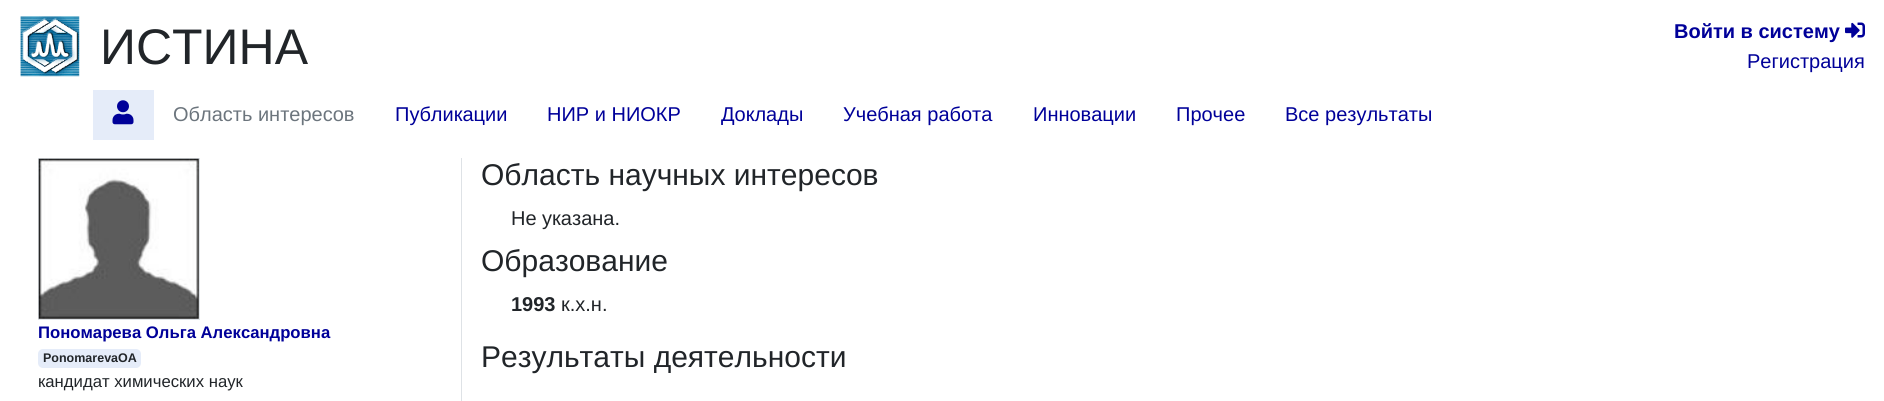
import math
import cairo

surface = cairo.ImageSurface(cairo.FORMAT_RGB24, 1884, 401)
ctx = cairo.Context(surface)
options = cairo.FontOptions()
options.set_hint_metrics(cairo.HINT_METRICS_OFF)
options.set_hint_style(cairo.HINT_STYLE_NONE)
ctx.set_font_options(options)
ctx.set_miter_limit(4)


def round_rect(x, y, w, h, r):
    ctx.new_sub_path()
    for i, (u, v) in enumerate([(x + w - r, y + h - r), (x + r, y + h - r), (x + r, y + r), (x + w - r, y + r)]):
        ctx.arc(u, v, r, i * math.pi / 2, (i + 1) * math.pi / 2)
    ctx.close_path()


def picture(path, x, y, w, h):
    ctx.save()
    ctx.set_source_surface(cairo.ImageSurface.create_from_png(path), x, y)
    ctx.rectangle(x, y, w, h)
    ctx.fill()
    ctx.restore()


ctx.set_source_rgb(1, 1, 1)
ctx.paint()
picture("img1.png", 20, 16, 60, 61)
ctx.select_font_face("Liberation Sans")
ctx.set_font_size(50)
ctx.set_source_rgb(0.129, 0.145, 0.161)
ctx.move_to(100, 64)
ctx.show_text("ИСТИНА")
ctx.select_font_face("Liberation Sans", cairo.FONT_SLANT_NORMAL, cairo.FONT_WEIGHT_BOLD)
ctx.set_font_size(20)
ctx.set_source_rgb(0, 0, 0.6)
ctx.move_to(1674, 38)
ctx.show_text("Войти в систему")
picture("img2.png", 1845, 22, 20, 16)
ctx.select_font_face("Liberation Sans")
ctx.move_to(1747, 68)
ctx.show_text("Регистрация")
ctx.set_source_rgb(0.898, 0.925, 0.976)
ctx.rectangle(93, 90, 61, 50)
ctx.fill()
picture("img3.png", 112, 100, 22, 25)
ctx.set_source_rgb(0.424, 0.459, 0.49)
ctx.move_to(173, 121)
ctx.show_text("Область интересов")
ctx.set_source_rgb(0, 0, 0.6)
ctx.move_to(395, 121)
ctx.show_text("Публикации")
ctx.move_to(547, 121)
ctx.show_text("НИР и НИОКР")
ctx.move_to(721, 121)
ctx.show_text("Доклады")
ctx.move_to(843, 121)
ctx.show_text("Учебная работа")
ctx.move_to(1033, 121)
ctx.show_text("Инновации")
ctx.move_to(1176, 121)
ctx.show_text("Прочее")
ctx.move_to(1285, 121)
ctx.show_text("Все результаты")
ctx.set_source_rgb(0.871, 0.886, 0.902)
ctx.rectangle(461, 158, 1, 243)
ctx.fill()
ctx.rectangle(38.5, 158.5, 161, 161)
ctx.set_line_width(1)
ctx.stroke()
picture("img4.png", 38, 158, 161, 161)
ctx.select_font_face("Liberation Sans", cairo.FONT_SLANT_NORMAL, cairo.FONT_WEIGHT_BOLD)
ctx.set_font_size(16.7)
ctx.set_source_rgb(0, 0, 0.6)
ctx.move_to(38, 338)
ctx.show_text("Пономарева Ольга Александровна")
ctx.set_source_rgb(0.898, 0.925, 0.976)
round_rect(38, 349, 103, 19, 5)
ctx.fill()
ctx.set_font_size(12.5)
ctx.set_source_rgb(0.129, 0.145, 0.161)
ctx.move_to(43, 362)
ctx.show_text("PonomarevaOA")
ctx.select_font_face("Liberation Sans")
ctx.set_font_size(16.7)
ctx.move_to(38, 387)
ctx.show_text("кандидат химических наук")
ctx.set_font_size(30)
ctx.move_to(481, 185)
ctx.show_text("Область научных интересов")
ctx.set_font_size(20)
ctx.move_to(511, 225)
ctx.show_text("Не указана.")
ctx.set_font_size(30)
ctx.move_to(481, 271)
ctx.show_text("Образование")
ctx.select_font_face("Liberation Sans", cairo.FONT_SLANT_NORMAL, cairo.FONT_WEIGHT_BOLD)
ctx.set_font_size(20)
ctx.move_to(511, 311)
ctx.show_text("1993")
ctx.select_font_face("Liberation Sans")
ctx.move_to(561, 311)
ctx.show_text("к.х.н.")
ctx.set_font_size(30)
ctx.move_to(481, 367)
ctx.show_text("Результаты деятельности")
surface.write_to_png("page.png")
